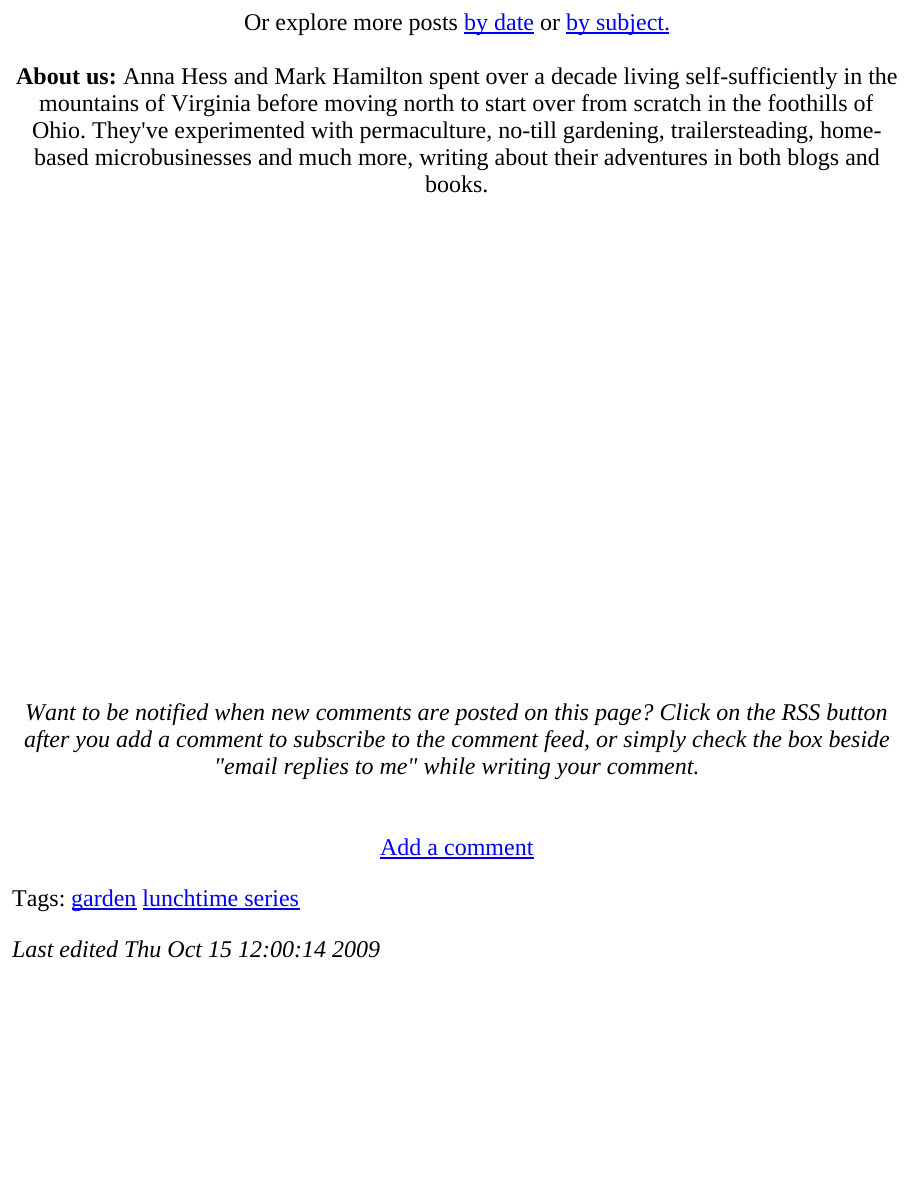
import math
import cairo

surface = cairo.ImageSurface(cairo.FORMAT_RGB24, 913, 1182)
ctx = cairo.Context(surface)
options = cairo.FontOptions()
options.set_hint_metrics(cairo.HINT_METRICS_OFF)
options.set_hint_style(cairo.HINT_STYLE_NONE)
ctx.set_font_options(options)
ctx.set_miter_limit(4)


ctx.set_source_rgb(1, 1, 1)
ctx.paint()
ctx.select_font_face("Liberation Serif")
ctx.set_font_size(24)
ctx.set_source_rgb(0, 0, 0)
ctx.move_to(244, 30)
ctx.show_text("Or explore more posts")
ctx.set_source_rgb(0, 0, 0.933)
ctx.rectangle(464, 32, 70, 2)
ctx.fill()
ctx.move_to(464, 30)
ctx.show_text("by date")
ctx.set_source_rgb(0, 0, 0)
ctx.move_to(540, 30)
ctx.show_text("or")
ctx.set_source_rgb(0, 0, 0.933)
ctx.rectangle(566, 32, 103, 2)
ctx.fill()
ctx.move_to(566, 30)
ctx.show_text("by subject.")
ctx.select_font_face("Liberation Serif", cairo.FONT_SLANT_NORMAL, cairo.FONT_WEIGHT_BOLD)
ctx.set_source_rgb(0, 0, 0)
ctx.move_to(16, 84)
ctx.show_text("About us:")
ctx.select_font_face("Liberation Serif")
ctx.move_to(123, 84)
ctx.show_text("Anna Hess and Mark Hamilton spent over a decade living self-sufficiently in the")
ctx.move_to(39, 111)
ctx.show_text("mountains of Virginia before moving north to start over from scratch in the foothills of")
ctx.move_to(32, 138)
ctx.show_text("Ohio. They've experimented with permaculture, no-till gardening, trailersteading, home-")
ctx.move_to(34, 165)
ctx.show_text("based microbusinesses and much more, writing about their adventures in both blogs and")
ctx.move_to(425, 192)
ctx.show_text("books.")
ctx.select_font_face("Liberation Serif", cairo.FONT_SLANT_ITALIC)
ctx.move_to(25, 720)
ctx.show_text("Want to be notified when new comments are posted on this page? Click on the RSS button")
ctx.move_to(24, 747)
ctx.show_text("after you add a comment to subscribe to the comment feed, or simply check the box beside")
ctx.move_to(214, 774)
ctx.show_text("\"email replies to me\" while writing your comment.")
ctx.select_font_face("Liberation Serif")
ctx.set_source_rgb(0, 0, 0.933)
ctx.move_to(380, 855)
ctx.show_text("Add a comment")
ctx.rectangle(380, 857, 154, 2)
ctx.fill()
ctx.set_source_rgb(0, 0, 0)
ctx.move_to(12, 906)
ctx.show_text("Tags:")
ctx.set_source_rgb(0, 0, 0.933)
ctx.rectangle(72, 908, 65, 2)
ctx.fill()
ctx.move_to(71, 906)
ctx.show_text("garden lunchtime series")
ctx.rectangle(143, 908, 157, 2)
ctx.fill()
ctx.select_font_face("Liberation Serif", cairo.FONT_SLANT_ITALIC)
ctx.set_source_rgb(0, 0, 0)
ctx.move_to(12, 957)
ctx.show_text("Last edited Thu Oct 15 12:00:14 2009")
surface.write_to_png("page.png")
